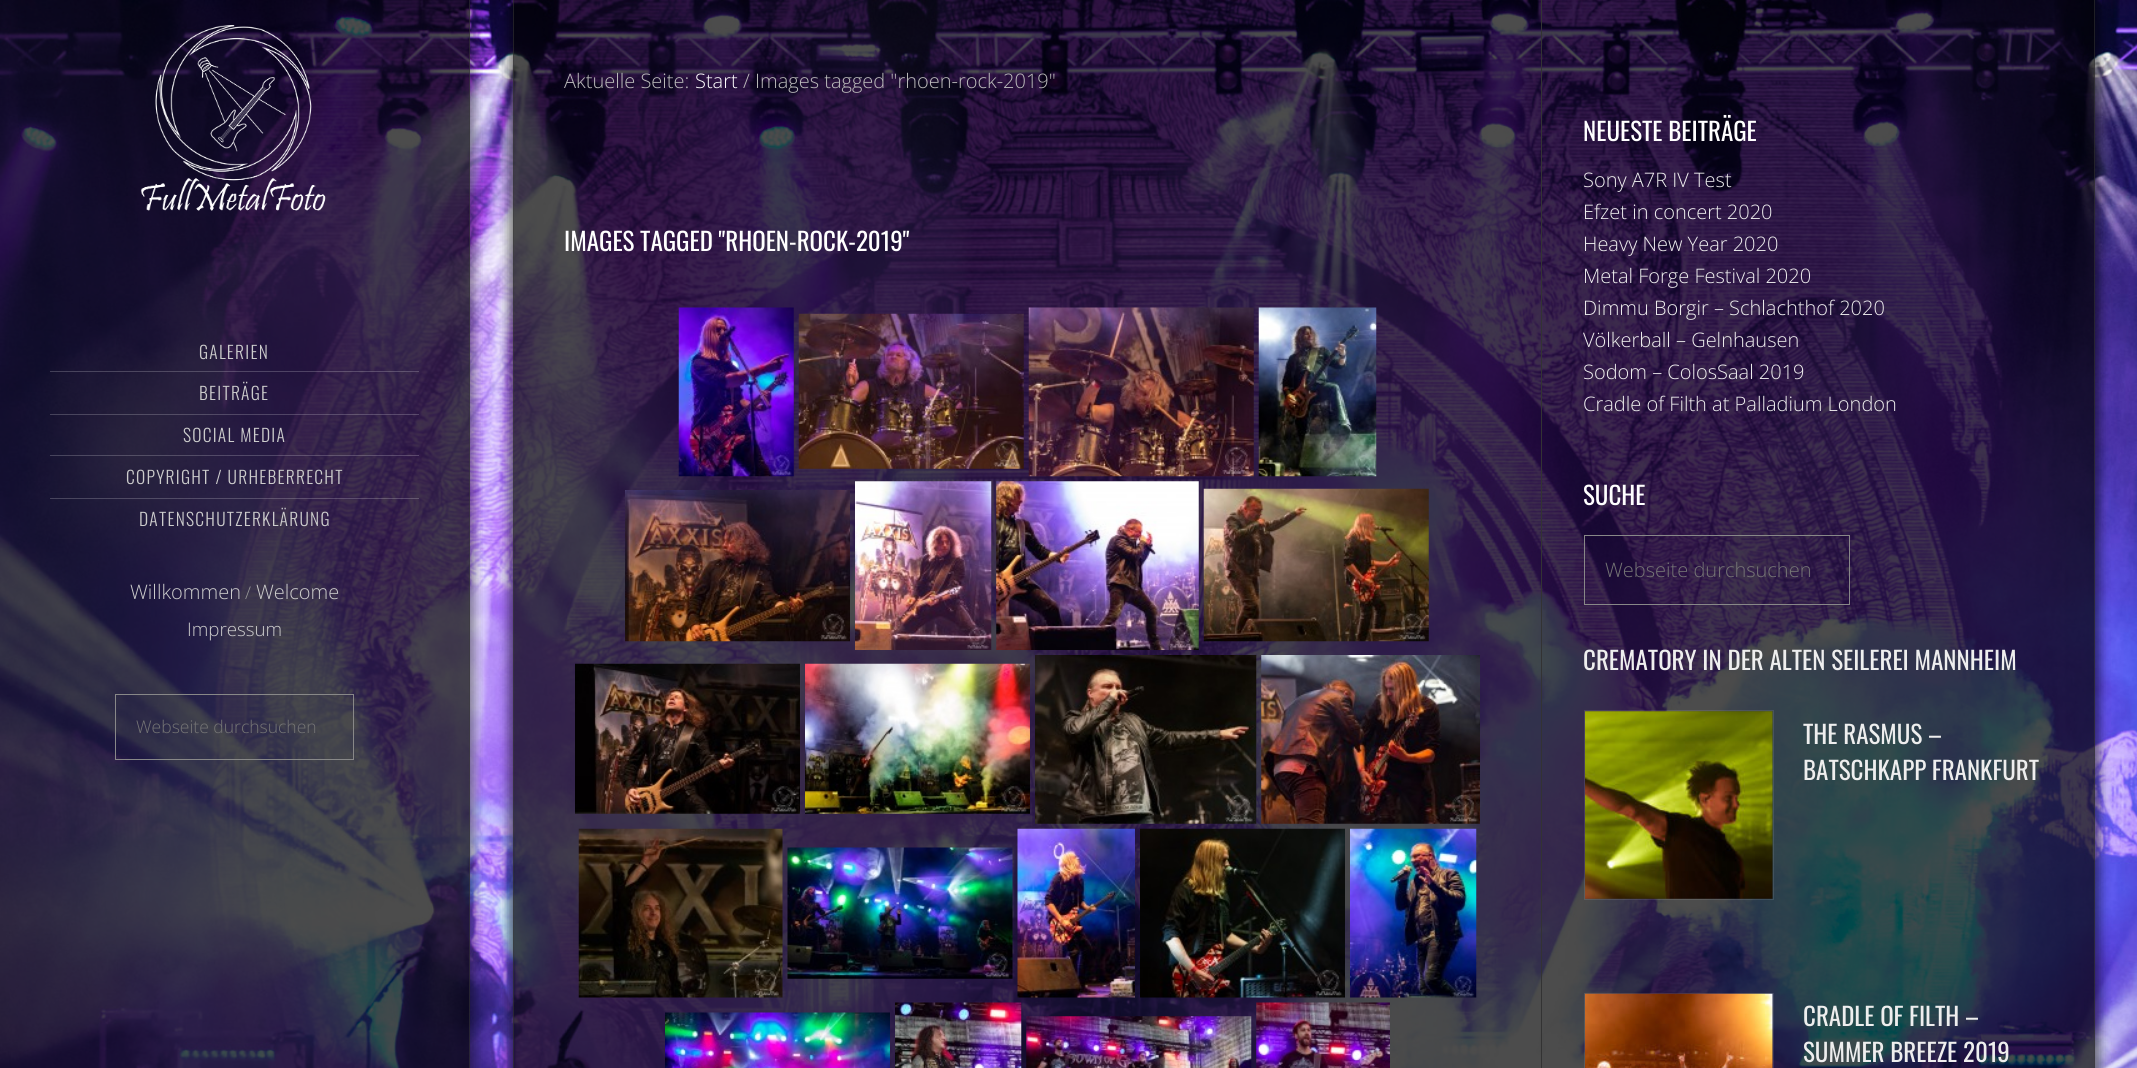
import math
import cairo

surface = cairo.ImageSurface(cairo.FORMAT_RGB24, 2137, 1068)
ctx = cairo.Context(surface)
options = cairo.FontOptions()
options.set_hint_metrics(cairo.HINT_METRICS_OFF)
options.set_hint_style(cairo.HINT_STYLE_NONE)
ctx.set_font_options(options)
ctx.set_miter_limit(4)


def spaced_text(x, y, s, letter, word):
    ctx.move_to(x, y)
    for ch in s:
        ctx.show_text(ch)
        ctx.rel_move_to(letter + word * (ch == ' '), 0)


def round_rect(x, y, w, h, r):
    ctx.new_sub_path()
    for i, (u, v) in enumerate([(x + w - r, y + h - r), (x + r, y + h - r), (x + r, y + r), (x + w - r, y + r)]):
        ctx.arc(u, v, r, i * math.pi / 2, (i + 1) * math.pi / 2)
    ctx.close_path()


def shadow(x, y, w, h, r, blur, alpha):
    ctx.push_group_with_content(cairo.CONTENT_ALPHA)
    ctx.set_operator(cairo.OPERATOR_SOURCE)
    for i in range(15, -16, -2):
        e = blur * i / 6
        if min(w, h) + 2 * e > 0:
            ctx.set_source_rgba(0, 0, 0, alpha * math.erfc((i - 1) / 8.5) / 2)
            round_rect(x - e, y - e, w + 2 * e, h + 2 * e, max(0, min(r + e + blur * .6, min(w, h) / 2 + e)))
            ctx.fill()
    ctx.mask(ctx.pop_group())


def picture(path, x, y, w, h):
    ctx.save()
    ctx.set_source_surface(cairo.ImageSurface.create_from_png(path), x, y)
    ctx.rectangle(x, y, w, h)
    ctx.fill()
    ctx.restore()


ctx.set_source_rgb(1, 1, 1)
ctx.paint()
picture("img1.png", 0, 0, 2137, 1068)
ctx.save()
ctx.rectangle(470, 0, 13, 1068)
ctx.clip()
ctx.set_source_rgb(0, 0, 0)
shadow(-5, -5, 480, 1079, 0, 5, 0.4)
ctx.restore()
ctx.set_source_rgba(0, 0, 0, 0.7)
ctx.rectangle(0, 0, 470, 1068)
ctx.fill()
ctx.set_source_rgba(0.235, 0.235, 0.235, 0.5)
ctx.rectangle(469, 0, 1, 1068)
ctx.fill()
picture("img2.png", 140, 25, 186, 186)
ctx.set_source_rgba(1, 1, 1, 0.2)
ctx.rectangle(50, 371, 369, 1)
ctx.fill()
ctx.select_font_face("Oswald Light")
ctx.set_font_size(17.5)
ctx.set_source_rgb(0.8, 0.8, 0.8)
spaced_text(199, 359, "GALERIEN", 1.25, 0)
ctx.set_source_rgba(1, 1, 1, 0.2)
ctx.rectangle(50, 414, 369, 1)
ctx.fill()
ctx.set_source_rgb(0.8, 0.8, 0.8)
spaced_text(199, 400, "BEITRÄGE", 1.25, 0)
ctx.set_source_rgba(1, 1, 1, 0.2)
ctx.rectangle(50, 455, 369, 1)
ctx.fill()
ctx.set_source_rgb(0.8, 0.8, 0.8)
spaced_text(183, 442, "SOCIAL MEDIA", 1.25, 0)
ctx.set_source_rgba(1, 1, 1, 0.2)
ctx.rectangle(50, 498, 369, 1)
ctx.fill()
ctx.set_source_rgb(0.8, 0.8, 0.8)
spaced_text(126, 484, "COPYRIGHT / URHEBERRECHT", 1.25, 0)
spaced_text(139, 526, "DATENSCHUTZERKLÄRUNG", 1.25, 0)
ctx.select_font_face("Open Sans Light")
ctx.set_font_size(20)
ctx.move_to(130, 599)
ctx.show_text("Willkommen")
ctx.set_font_size(17.5)
ctx.set_source_rgb(0.6, 0.6, 0.6)
ctx.move_to(245, 599)
ctx.show_text("/")
ctx.set_font_size(20)
ctx.set_source_rgb(0.8, 0.8, 0.8)
ctx.move_to(256, 599)
ctx.show_text("Welcome")
ctx.set_font_size(18.75)
ctx.move_to(187, 636)
ctx.show_text("Impressum")
ctx.rectangle(115.5, 694.5, 238, 65)
ctx.set_source_rgb(0.533, 0.533, 0.533)
ctx.set_line_width(1)
ctx.stroke()
ctx.set_font_size(17.5)
ctx.set_source_rgb(0.459, 0.459, 0.459)
ctx.move_to(136, 733)
ctx.show_text("Webseite durchsuchen")
ctx.save()
ctx.set_fill_rule(cairo.FILL_RULE_EVEN_ODD)
ctx.new_path()
ctx.move_to(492, 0)
ctx.line_to(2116, 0)
ctx.line_to(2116, 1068)
ctx.line_to(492, 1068)
ctx.close_path()
ctx.move_to(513, 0)
ctx.line_to(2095, 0)
ctx.line_to(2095, 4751)
ctx.line_to(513, 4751)
ctx.close_path()
ctx.clip()
ctx.set_source_rgb(0, 0, 0)
shadow(508, -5, 1592, 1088, 0, 5, 0.5)
ctx.restore()
ctx.set_source_rgba(0, 0, 0, 0.7)
ctx.rectangle(513, 0, 1582, 1068)
ctx.fill()
ctx.set_source_rgba(0.235, 0.235, 0.235, 0.5)
ctx.rectangle(2094, 0, 1, 1068)
ctx.fill()
ctx.rectangle(513, 0, 1, 1068)
ctx.fill()
ctx.set_font_size(20)
ctx.set_source_rgb(0.733, 0.733, 0.733)
ctx.move_to(564, 88)
ctx.show_text("Aktuelle Seite:")
ctx.set_source_rgb(1, 1, 1)
ctx.move_to(695, 88)
ctx.show_text("Start")
ctx.set_source_rgb(0.733, 0.733, 0.733)
ctx.move_to(743, 88)
ctx.show_text("/ Images tagged \"rhoen-rock-2019\"")
ctx.select_font_face("Oswald")
ctx.set_font_size(25)
ctx.set_source_rgb(1, 1, 1)
ctx.move_to(564, 251)
ctx.show_text("IMAGES TAGGED \"RHOEN-ROCK-2019\"")
picture("img3.png", 678, 307, 116, 170)
picture("img4.png", 798, 313, 226, 156)
picture("img5.png", 1028, 307, 226, 170)
picture("img6.png", 1258, 307, 119, 170)
picture("img7.png", 625, 490, 225, 152)
picture("img8.png", 855, 481, 137, 169)
picture("img9.png", 996, 481, 203, 169)
picture("img10.png", 1203, 488, 226, 154)
picture("img11.png", 575, 663, 225, 151)
picture("img12.png", 805, 663, 225, 151)
picture("img13.png", 1035, 655, 222, 169)
picture("img14.png", 1261, 655, 219, 169)
picture("img15.png", 578, 828, 205, 170)
picture("img16.png", 787, 847, 226, 132)
picture("img17.png", 1017, 828, 118, 170)
picture("img18.png", 1140, 828, 205, 170)
picture("img19.png", 1350, 828, 127, 170)
picture("img20.png", 665, 1012, 225, 56)
picture("img21.png", 895, 1002, 127, 66)
picture("img22.png", 1026, 1016, 226, 52)
picture("img23.png", 1256, 1002, 134, 66)
ctx.set_source_rgb(0.2, 0.2, 0.2)
ctx.rectangle(1541, 0, 1, 1068)
ctx.fill()
ctx.set_source_rgb(1, 1, 1)
ctx.move_to(1583, 141)
ctx.show_text("NEUESTE BEITRÄGE")
ctx.select_font_face("Open Sans Light")
ctx.set_font_size(20)
ctx.set_source_rgb(0.933, 0.933, 0.933)
ctx.move_to(1583, 187)
ctx.show_text("Sony A7R IV Test")
ctx.move_to(1583, 219)
ctx.show_text("Efzet in concert 2020")
ctx.move_to(1583, 251)
ctx.show_text("Heavy New Year 2020")
ctx.move_to(1583, 283)
ctx.show_text("Metal Forge Festival 2020")
ctx.move_to(1583, 315)
ctx.show_text("Dimmu Borgir – Schlachthof 2020")
ctx.move_to(1583, 347)
ctx.show_text("Völkerball – Gelnhausen")
ctx.move_to(1583, 379)
ctx.show_text("Sodom – ColosSaal 2019")
ctx.move_to(1583, 411)
ctx.show_text("Cradle of Filth at Palladium London")
ctx.select_font_face("Oswald")
ctx.set_font_size(25)
ctx.set_source_rgb(1, 1, 1)
ctx.move_to(1583, 505)
ctx.show_text("SUCHE")
ctx.rectangle(1584.5, 535.5, 265, 69)
ctx.set_source_rgb(0.533, 0.533, 0.533)
ctx.stroke()
ctx.select_font_face("Open Sans Light")
ctx.set_font_size(20)
ctx.set_source_rgb(0.459, 0.459, 0.459)
ctx.move_to(1605, 577)
ctx.show_text("Webseite durchsuchen")
ctx.select_font_face("Oswald")
ctx.set_font_size(25)
ctx.set_source_rgb(0.933, 0.933, 0.933)
ctx.move_to(1583, 670)
ctx.show_text("CREMATORY IN DER ALTEN SEILEREI MANNHEIM")
ctx.rectangle(1584.5, 710.5, 189, 189)
ctx.set_source_rgba(1, 1, 1, 0.1)
ctx.stroke()
picture("img24.png", 1585, 711, 188, 188)
ctx.set_source_rgb(0.933, 0.933, 0.933)
ctx.move_to(1803, 744)
ctx.show_text("THE RASMUS –")
ctx.move_to(1803, 780)
ctx.show_text("BATSCHKAPP FRANKFURT")
ctx.rectangle(1584.5, 993.5, 189, 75)
ctx.set_source_rgba(1, 1, 1, 0.1)
ctx.stroke()
picture("img25.png", 1585, 993, 188, 75)
ctx.set_source_rgb(0.933, 0.933, 0.933)
ctx.move_to(1803, 1026)
ctx.show_text("CRADLE OF FILTH –")
ctx.move_to(1803, 1062)
ctx.show_text("SUMMER BREEZE 2019")
surface.write_to_png("page.png")
